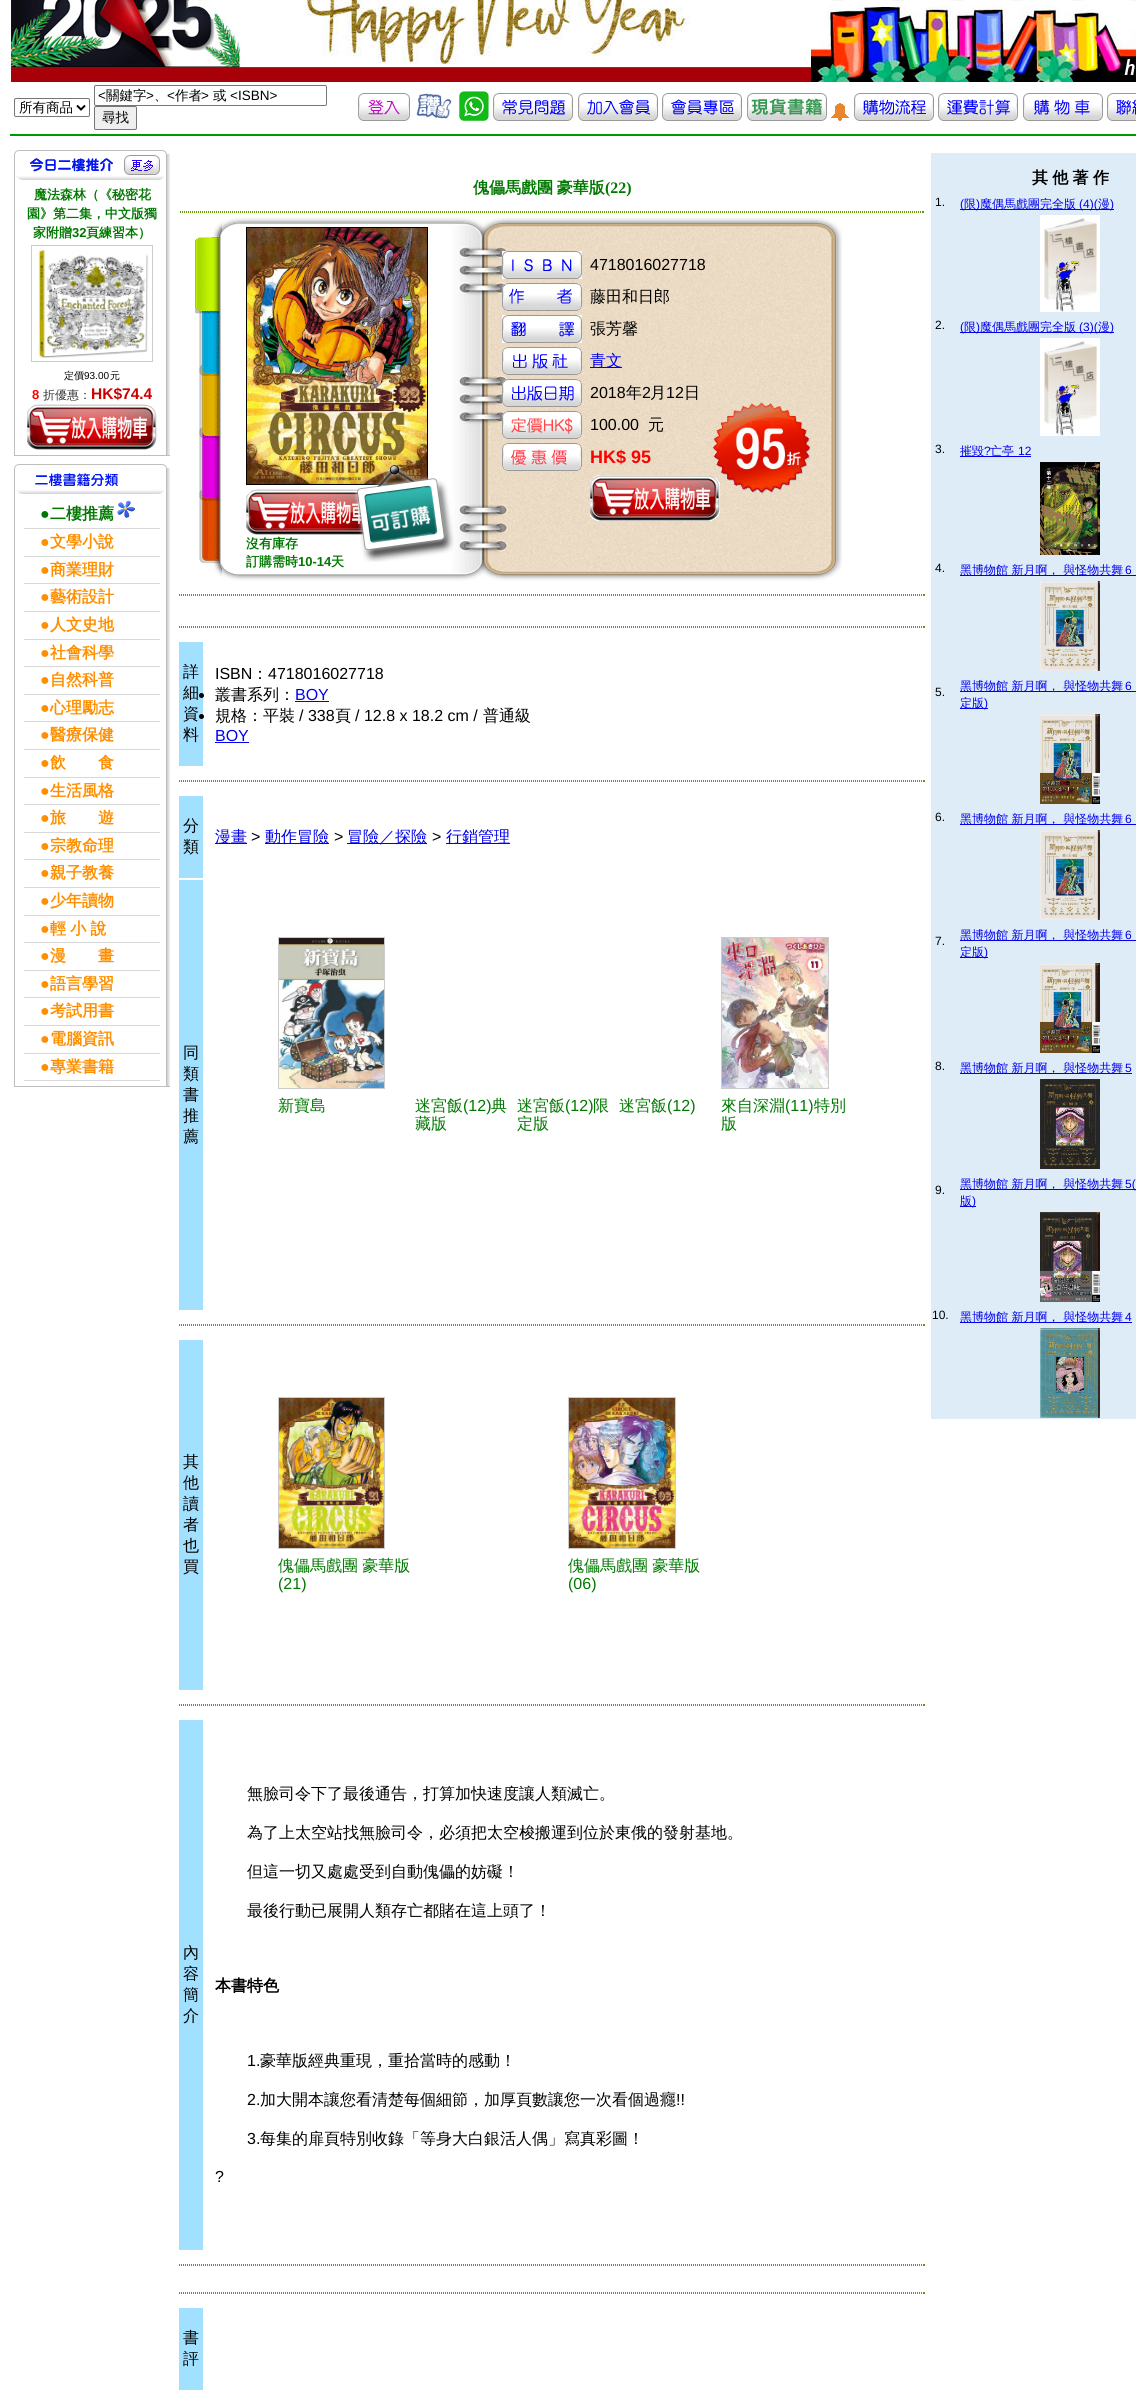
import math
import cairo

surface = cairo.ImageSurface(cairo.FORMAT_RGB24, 1136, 2392)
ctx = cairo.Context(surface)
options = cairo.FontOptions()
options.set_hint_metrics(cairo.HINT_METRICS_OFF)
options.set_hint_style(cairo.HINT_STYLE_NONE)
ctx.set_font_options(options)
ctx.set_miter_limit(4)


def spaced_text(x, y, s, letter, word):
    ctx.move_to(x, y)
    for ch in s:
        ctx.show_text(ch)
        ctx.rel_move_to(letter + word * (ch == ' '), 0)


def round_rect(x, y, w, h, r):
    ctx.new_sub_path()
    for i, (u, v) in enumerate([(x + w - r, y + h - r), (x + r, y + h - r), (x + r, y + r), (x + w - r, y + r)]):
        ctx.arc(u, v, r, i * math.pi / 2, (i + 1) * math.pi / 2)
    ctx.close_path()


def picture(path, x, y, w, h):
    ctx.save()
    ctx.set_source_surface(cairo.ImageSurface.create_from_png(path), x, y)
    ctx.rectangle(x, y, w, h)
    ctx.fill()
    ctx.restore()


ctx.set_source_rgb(1, 1, 1)
ctx.paint()
picture("img1.png", 195, 217, 647, 364)
ctx.set_source_rgb(0, 0.6, 0)
ctx.rectangle(10, 134, 1126, 2)
ctx.fill()
picture("img2.png", 11, 0, 800, 82)
picture("img3.png", 832, 0, 13, 1)
picture("img3.png", 891, 0, 13, 1)
picture("img3.png", 951, 0, 13, 1)
picture("img3.png", 1010, 0, 13, 1)
picture("img3.png", 1070, 0, 13, 1)
picture("img4.png", 1129, 0, 7, 1)
picture("img5.png", 811, 6, 325, 76)
round_rect(14.5, 98.5, 75, 18, 1.5)
ctx.set_source_rgb(0.463, 0.463, 0.463)
ctx.set_line_width(1)
ctx.stroke()
ctx.new_path()
ctx.move_to(77, 105.5)
ctx.line_to(81, 109.5)
ctx.line_to(85, 105.5)
ctx.set_source_rgb(0, 0, 0)
ctx.set_line_width(2)
ctx.stroke()
ctx.select_font_face("WenQuanYi Zen Hei Medium")
ctx.set_font_size(13.5)
ctx.move_to(19, 112)
ctx.show_text("所有商品")
round_rect(94.5, 85.5, 232, 20, 1.5)
ctx.set_source_rgb(0.463, 0.463, 0.463)
ctx.set_line_width(1)
ctx.stroke()
ctx.select_font_face("Liberation Sans")
ctx.set_source_rgb(0, 0, 0)
ctx.move_to(98, 100)
ctx.show_text("<")
ctx.select_font_face("WenQuanYi Zen Hei Medium")
ctx.move_to(106, 100)
ctx.show_text("關鍵字")
ctx.select_font_face("Liberation Sans")
ctx.move_to(146, 100)
ctx.show_text(">")
ctx.move_to(167, 100)
ctx.show_text("<")
ctx.select_font_face("WenQuanYi Zen Hei Medium")
ctx.move_to(175, 100)
ctx.show_text("作者")
ctx.select_font_face("Liberation Sans")
ctx.move_to(201, 100)
ctx.show_text(">")
ctx.select_font_face("WenQuanYi Zen Hei Medium")
ctx.move_to(213, 100)
ctx.show_text("或")
ctx.select_font_face("Liberation Sans")
ctx.move_to(230, 100)
ctx.show_text("<ISBN>")
ctx.select_font_face("WenQuanYi Zen Hei Medium")
ctx.move_to(154, 100)
ctx.show_text("、")
ctx.set_source_rgb(0.937, 0.937, 0.937)
round_rect(94.5, 106.5, 42, 23, 1.5)
ctx.fill_preserve()
ctx.set_source_rgb(0.463, 0.463, 0.463)
ctx.stroke()
ctx.set_source_rgb(0, 0, 0)
ctx.move_to(102, 122)
ctx.show_text("尋找")
picture("img6.png", 358, 93, 52, 28)
picture("img7.png", 416, 93, 36, 26)
picture("img8.png", 459, 91, 30, 30)
picture("img9.png", 493, 93, 80, 28)
picture("img10.png", 578, 93, 80, 28)
picture("img11.png", 662, 93, 80, 28)
picture("img12.png", 747, 93, 80, 28)
picture("img13.png", 831, 103, 18, 18)
picture("img14.png", 854, 93, 80, 28)
picture("img15.png", 938, 93, 80, 28)
picture("img16.png", 1023, 93, 80, 28)
picture("img17.png", 1107, 93, 29, 28)
picture("img18.png", 14, 150, 156, 30)
picture("img19.png", 30, 158, 83, 14)
picture("img20.png", 124, 155, 36, 20)
picture("img21.png", 14, 180, 156, 275)
ctx.set_source_rgb(0.745, 0.745, 0.745)
ctx.rectangle(14, 455, 156, 1)
ctx.fill()
ctx.select_font_face("WenQuanYi Zen Hei", cairo.FONT_SLANT_NORMAL, cairo.FONT_WEIGHT_BOLD)
ctx.set_font_size(13)
ctx.set_source_rgb(0, 0.471, 0)
ctx.move_to(34, 199)
ctx.show_text("魔法森林（《秘密花")
ctx.move_to(27, 218)
ctx.show_text("園》第二集，中文版獨")
ctx.move_to(33, 237)
ctx.show_text("家附贈")
ctx.select_font_face("Liberation Sans", cairo.FONT_SLANT_NORMAL, cairo.FONT_WEIGHT_BOLD)
ctx.move_to(72, 237)
ctx.show_text("32")
ctx.select_font_face("WenQuanYi Zen Hei", cairo.FONT_SLANT_NORMAL, cairo.FONT_WEIGHT_BOLD)
ctx.move_to(86, 237)
ctx.show_text("頁練習本）")
ctx.rectangle(31.5, 245.5, 121, 116)
ctx.set_source_rgb(0.8, 0.8, 0.8)
ctx.stroke()
picture("img22.png", 38, 249, 111, 109)
ctx.select_font_face("WenQuanYi Zen Hei Medium")
ctx.set_font_size(10)
ctx.set_source_rgb(0, 0, 0)
ctx.move_to(64, 379)
ctx.show_text("定價")
ctx.select_font_face("Liberation Sans")
ctx.move_to(84, 379)
ctx.show_text("93.00")
ctx.select_font_face("WenQuanYi Zen Hei Medium")
ctx.move_to(110, 379)
ctx.show_text("元")
ctx.select_font_face("Liberation Sans", cairo.FONT_SLANT_NORMAL, cairo.FONT_WEIGHT_BOLD)
ctx.set_font_size(13)
ctx.set_source_rgb(1, 0, 0)
ctx.move_to(32, 399)
ctx.show_text("8")
ctx.select_font_face("WenQuanYi Zen Hei Medium")
ctx.set_font_size(12)
ctx.set_source_rgb(0.2, 0.2, 0.2)
ctx.move_to(43, 399)
ctx.show_text("折優惠：")
ctx.select_font_face("Liberation Sans", cairo.FONT_SLANT_NORMAL, cairo.FONT_WEIGHT_BOLD)
ctx.set_font_size(15.5)
ctx.set_source_rgb(0.8, 0, 0)
ctx.move_to(91, 399)
ctx.show_text("HK$74.4")
picture("img23.png", 27, 404, 130, 46)
picture("img24.png", 14, 464, 156, 30)
picture("img25.png", 35, 464, 83, 30)
picture("img26.png", 14, 494, 156, 592)
ctx.set_source_rgb(0.745, 0.745, 0.745)
ctx.rectangle(14, 1086, 156, 1)
ctx.fill()
ctx.set_source_rgb(0.843, 0.843, 0.843)
ctx.rectangle(24, 528, 136, 1)
ctx.fill()
ctx.set_font_size(16)
ctx.set_source_rgb(0, 0.471, 0)
ctx.move_to(40, 519)
ctx.show_text("●")
ctx.select_font_face("WenQuanYi Zen Hei", cairo.FONT_SLANT_NORMAL, cairo.FONT_WEIGHT_BOLD)
ctx.move_to(50, 519)
ctx.show_text("二樓推薦")
picture("img27.png", 117, 500, 18, 18)
ctx.set_source_rgb(0.843, 0.843, 0.843)
ctx.rectangle(24, 556, 136, 1)
ctx.fill()
ctx.select_font_face("Liberation Sans", cairo.FONT_SLANT_NORMAL, cairo.FONT_WEIGHT_BOLD)
ctx.set_source_rgb(1, 0.561, 0)
ctx.move_to(40, 547)
ctx.show_text("●")
ctx.select_font_face("WenQuanYi Zen Hei", cairo.FONT_SLANT_NORMAL, cairo.FONT_WEIGHT_BOLD)
ctx.move_to(50, 547)
ctx.show_text("文學小說")
ctx.set_source_rgb(0.843, 0.843, 0.843)
ctx.rectangle(24, 583, 136, 1)
ctx.fill()
ctx.select_font_face("Liberation Sans", cairo.FONT_SLANT_NORMAL, cairo.FONT_WEIGHT_BOLD)
ctx.set_source_rgb(1, 0.561, 0)
ctx.move_to(40, 575)
ctx.show_text("●")
ctx.select_font_face("WenQuanYi Zen Hei", cairo.FONT_SLANT_NORMAL, cairo.FONT_WEIGHT_BOLD)
ctx.move_to(50, 575)
ctx.show_text("商業理財")
ctx.set_source_rgb(0.843, 0.843, 0.843)
ctx.rectangle(24, 611, 136, 1)
ctx.fill()
ctx.select_font_face("Liberation Sans", cairo.FONT_SLANT_NORMAL, cairo.FONT_WEIGHT_BOLD)
ctx.set_source_rgb(1, 0.561, 0)
ctx.move_to(40, 602)
ctx.show_text("●")
ctx.select_font_face("WenQuanYi Zen Hei", cairo.FONT_SLANT_NORMAL, cairo.FONT_WEIGHT_BOLD)
ctx.move_to(50, 602)
ctx.show_text("藝術設計")
ctx.set_source_rgb(0.843, 0.843, 0.843)
ctx.rectangle(24, 639, 136, 1)
ctx.fill()
ctx.select_font_face("Liberation Sans", cairo.FONT_SLANT_NORMAL, cairo.FONT_WEIGHT_BOLD)
ctx.set_source_rgb(1, 0.561, 0)
ctx.move_to(40, 630)
ctx.show_text("●")
ctx.select_font_face("WenQuanYi Zen Hei", cairo.FONT_SLANT_NORMAL, cairo.FONT_WEIGHT_BOLD)
ctx.move_to(50, 630)
ctx.show_text("人文史地")
ctx.set_source_rgb(0.843, 0.843, 0.843)
ctx.rectangle(24, 666, 136, 1)
ctx.fill()
ctx.select_font_face("Liberation Sans", cairo.FONT_SLANT_NORMAL, cairo.FONT_WEIGHT_BOLD)
ctx.set_source_rgb(1, 0.561, 0)
ctx.move_to(40, 658)
ctx.show_text("●")
ctx.select_font_face("WenQuanYi Zen Hei", cairo.FONT_SLANT_NORMAL, cairo.FONT_WEIGHT_BOLD)
ctx.move_to(50, 658)
ctx.show_text("社會科學")
ctx.set_source_rgb(0.843, 0.843, 0.843)
ctx.rectangle(24, 694, 136, 1)
ctx.fill()
ctx.select_font_face("Liberation Sans", cairo.FONT_SLANT_NORMAL, cairo.FONT_WEIGHT_BOLD)
ctx.set_source_rgb(1, 0.561, 0)
ctx.move_to(40, 685)
ctx.show_text("●")
ctx.select_font_face("WenQuanYi Zen Hei", cairo.FONT_SLANT_NORMAL, cairo.FONT_WEIGHT_BOLD)
ctx.move_to(50, 685)
ctx.show_text("自然科普")
ctx.set_source_rgb(0.843, 0.843, 0.843)
ctx.rectangle(24, 721, 136, 1)
ctx.fill()
ctx.select_font_face("Liberation Sans", cairo.FONT_SLANT_NORMAL, cairo.FONT_WEIGHT_BOLD)
ctx.set_source_rgb(1, 0.561, 0)
ctx.move_to(40, 713)
ctx.show_text("●")
ctx.select_font_face("WenQuanYi Zen Hei", cairo.FONT_SLANT_NORMAL, cairo.FONT_WEIGHT_BOLD)
ctx.move_to(50, 713)
ctx.show_text("心理勵志")
ctx.set_source_rgb(0.843, 0.843, 0.843)
ctx.rectangle(24, 749, 136, 1)
ctx.fill()
ctx.select_font_face("Liberation Sans", cairo.FONT_SLANT_NORMAL, cairo.FONT_WEIGHT_BOLD)
ctx.set_source_rgb(1, 0.561, 0)
ctx.move_to(40, 740)
ctx.show_text("●")
ctx.select_font_face("WenQuanYi Zen Hei", cairo.FONT_SLANT_NORMAL, cairo.FONT_WEIGHT_BOLD)
ctx.move_to(50, 740)
ctx.show_text("醫療保健")
ctx.set_source_rgb(0.843, 0.843, 0.843)
ctx.rectangle(24, 777, 136, 1)
ctx.fill()
ctx.select_font_face("Liberation Sans", cairo.FONT_SLANT_NORMAL, cairo.FONT_WEIGHT_BOLD)
ctx.set_source_rgb(1, 0.561, 0)
ctx.move_to(40, 768)
ctx.show_text("●")
ctx.select_font_face("WenQuanYi Zen Hei", cairo.FONT_SLANT_NORMAL, cairo.FONT_WEIGHT_BOLD)
ctx.move_to(50, 768)
ctx.show_text("飲　　食")
ctx.set_source_rgb(0.843, 0.843, 0.843)
ctx.rectangle(24, 804, 136, 1)
ctx.fill()
ctx.select_font_face("Liberation Sans", cairo.FONT_SLANT_NORMAL, cairo.FONT_WEIGHT_BOLD)
ctx.set_source_rgb(1, 0.561, 0)
ctx.move_to(40, 796)
ctx.show_text("●")
ctx.select_font_face("WenQuanYi Zen Hei", cairo.FONT_SLANT_NORMAL, cairo.FONT_WEIGHT_BOLD)
ctx.move_to(50, 796)
ctx.show_text("生活風格")
ctx.set_source_rgb(0.843, 0.843, 0.843)
ctx.rectangle(24, 832, 136, 1)
ctx.fill()
ctx.select_font_face("Liberation Sans", cairo.FONT_SLANT_NORMAL, cairo.FONT_WEIGHT_BOLD)
ctx.set_source_rgb(1, 0.561, 0)
ctx.move_to(40, 823)
ctx.show_text("●")
ctx.select_font_face("WenQuanYi Zen Hei", cairo.FONT_SLANT_NORMAL, cairo.FONT_WEIGHT_BOLD)
ctx.move_to(50, 823)
ctx.show_text("旅　　遊")
ctx.set_source_rgb(0.843, 0.843, 0.843)
ctx.rectangle(24, 859, 136, 1)
ctx.fill()
ctx.select_font_face("Liberation Sans", cairo.FONT_SLANT_NORMAL, cairo.FONT_WEIGHT_BOLD)
ctx.set_source_rgb(1, 0.561, 0)
ctx.move_to(40, 851)
ctx.show_text("●")
ctx.select_font_face("WenQuanYi Zen Hei", cairo.FONT_SLANT_NORMAL, cairo.FONT_WEIGHT_BOLD)
ctx.move_to(50, 851)
ctx.show_text("宗教命理")
ctx.set_source_rgb(0.843, 0.843, 0.843)
ctx.rectangle(24, 887, 136, 1)
ctx.fill()
ctx.select_font_face("Liberation Sans", cairo.FONT_SLANT_NORMAL, cairo.FONT_WEIGHT_BOLD)
ctx.set_source_rgb(1, 0.561, 0)
ctx.move_to(40, 878)
ctx.show_text("●")
ctx.select_font_face("WenQuanYi Zen Hei", cairo.FONT_SLANT_NORMAL, cairo.FONT_WEIGHT_BOLD)
ctx.move_to(50, 878)
ctx.show_text("親子教養")
ctx.set_source_rgb(0.843, 0.843, 0.843)
ctx.rectangle(24, 915, 136, 1)
ctx.fill()
ctx.select_font_face("Liberation Sans", cairo.FONT_SLANT_NORMAL, cairo.FONT_WEIGHT_BOLD)
ctx.set_source_rgb(1, 0.561, 0)
ctx.move_to(40, 906)
ctx.show_text("●")
ctx.select_font_face("WenQuanYi Zen Hei", cairo.FONT_SLANT_NORMAL, cairo.FONT_WEIGHT_BOLD)
ctx.move_to(50, 906)
ctx.show_text("少年讀物")
ctx.set_source_rgb(0.843, 0.843, 0.843)
ctx.rectangle(24, 942, 136, 1)
ctx.fill()
ctx.select_font_face("Liberation Sans", cairo.FONT_SLANT_NORMAL, cairo.FONT_WEIGHT_BOLD)
ctx.set_source_rgb(1, 0.561, 0)
ctx.move_to(40, 934)
ctx.show_text("●")
ctx.select_font_face("WenQuanYi Zen Hei", cairo.FONT_SLANT_NORMAL, cairo.FONT_WEIGHT_BOLD)
spaced_text(50, 934, "輕 小 說", 0, -0.5)
ctx.set_source_rgb(0.843, 0.843, 0.843)
ctx.rectangle(24, 970, 136, 1)
ctx.fill()
ctx.select_font_face("Liberation Sans", cairo.FONT_SLANT_NORMAL, cairo.FONT_WEIGHT_BOLD)
ctx.set_source_rgb(1, 0.561, 0)
ctx.move_to(40, 961)
ctx.show_text("●")
ctx.select_font_face("WenQuanYi Zen Hei", cairo.FONT_SLANT_NORMAL, cairo.FONT_WEIGHT_BOLD)
ctx.move_to(50, 961)
ctx.show_text("漫　　畫")
ctx.set_source_rgb(0.843, 0.843, 0.843)
ctx.rectangle(24, 997, 136, 1)
ctx.fill()
ctx.select_font_face("Liberation Sans", cairo.FONT_SLANT_NORMAL, cairo.FONT_WEIGHT_BOLD)
ctx.set_source_rgb(1, 0.561, 0)
ctx.move_to(40, 989)
ctx.show_text("●")
ctx.select_font_face("WenQuanYi Zen Hei", cairo.FONT_SLANT_NORMAL, cairo.FONT_WEIGHT_BOLD)
ctx.move_to(50, 989)
ctx.show_text("語言學習")
ctx.set_source_rgb(0.843, 0.843, 0.843)
ctx.rectangle(24, 1025, 136, 1)
ctx.fill()
ctx.select_font_face("Liberation Sans", cairo.FONT_SLANT_NORMAL, cairo.FONT_WEIGHT_BOLD)
ctx.set_source_rgb(1, 0.561, 0)
ctx.move_to(40, 1016)
ctx.show_text("●")
ctx.select_font_face("WenQuanYi Zen Hei", cairo.FONT_SLANT_NORMAL, cairo.FONT_WEIGHT_BOLD)
ctx.move_to(50, 1016)
ctx.show_text("考試用書")
ctx.set_source_rgb(0.843, 0.843, 0.843)
ctx.rectangle(24, 1053, 136, 1)
ctx.fill()
ctx.select_font_face("Liberation Sans", cairo.FONT_SLANT_NORMAL, cairo.FONT_WEIGHT_BOLD)
ctx.set_source_rgb(1, 0.561, 0)
ctx.move_to(40, 1044)
ctx.show_text("●")
ctx.select_font_face("WenQuanYi Zen Hei", cairo.FONT_SLANT_NORMAL, cairo.FONT_WEIGHT_BOLD)
ctx.move_to(50, 1044)
ctx.show_text("電腦資訊")
ctx.set_source_rgb(0.843, 0.843, 0.843)
ctx.rectangle(24, 1080, 136, 1)
ctx.fill()
ctx.select_font_face("Liberation Sans", cairo.FONT_SLANT_NORMAL, cairo.FONT_WEIGHT_BOLD)
ctx.set_source_rgb(1, 0.561, 0)
ctx.move_to(40, 1072)
ctx.show_text("●")
ctx.select_font_face("WenQuanYi Zen Hei", cairo.FONT_SLANT_NORMAL, cairo.FONT_WEIGHT_BOLD)
ctx.move_to(50, 1072)
ctx.show_text("專業書籍")
ctx.set_source_rgb(0, 0.471, 0)
spaced_text(473, 193, "傀儡馬戲團 豪華版", 0, -1)
ctx.select_font_face("Liberation Serif", cairo.FONT_SLANT_NORMAL, cairo.FONT_WEIGHT_BOLD)
ctx.move_to(605, 193)
ctx.show_text("(22)")
ctx.new_path()
ctx.move_to(180, 211.5)
ctx.line_to(924, 211.5)
ctx.set_source_rgb(0.4, 0.6, 0)
ctx.set_dash([1, 1])
ctx.stroke()
ctx.rectangle(923, 211, 1, 2)
ctx.fill()
ctx.new_path()
ctx.move_to(180, 212.5)
ctx.line_to(924, 212.5)
ctx.stroke()
picture("img28.png", 502, 251, 80, 28)
ctx.select_font_face("Liberation Sans")
ctx.set_source_rgb(0, 0, 0)
ctx.move_to(590, 270)
ctx.show_text("4718016027718")
picture("img29.png", 502, 283, 80, 28)
ctx.select_font_face("WenQuanYi Zen Hei Medium")
ctx.move_to(590, 302)
ctx.show_text("藤田和日郎")
picture("img30.png", 502, 315, 80, 28)
ctx.move_to(590, 334)
ctx.show_text("張芳馨")
picture("img31.png", 502, 347, 80, 28)
ctx.set_source_rgb(0, 0, 0.933)
ctx.rectangle(590, 367, 32, 1)
ctx.fill()
ctx.move_to(590, 366)
ctx.show_text("青文")
picture("img32.png", 502, 379, 80, 28)
ctx.select_font_face("Liberation Sans")
ctx.set_source_rgb(0, 0, 0)
ctx.move_to(590, 398)
ctx.show_text("2018")
ctx.select_font_face("WenQuanYi Zen Hei Medium")
ctx.move_to(626, 398)
ctx.show_text("年")
ctx.select_font_face("Liberation Sans")
ctx.move_to(642, 398)
ctx.show_text("2")
ctx.select_font_face("WenQuanYi Zen Hei Medium")
ctx.move_to(650, 398)
ctx.show_text("月")
ctx.select_font_face("Liberation Sans")
ctx.move_to(666, 398)
ctx.show_text("12")
ctx.select_font_face("WenQuanYi Zen Hei Medium")
ctx.move_to(684, 398)
ctx.show_text("日")
picture("img33.png", 502, 411, 80, 28)
ctx.select_font_face("Liberation Sans")
ctx.move_to(590, 430)
ctx.show_text("100.00")
ctx.select_font_face("WenQuanYi Zen Hei Medium")
ctx.move_to(648, 430)
ctx.show_text("元")
picture("img34.png", 502, 443, 80, 28)
ctx.select_font_face("Liberation Sans", cairo.FONT_SLANT_NORMAL, cairo.FONT_WEIGHT_BOLD)
ctx.set_font_size(18)
ctx.set_source_rgb(1, 0, 0)
ctx.move_to(590, 463)
ctx.show_text("HK$ 95")
picture("img35.png", 590, 475, 130, 46)
ctx.rectangle(246.5, 227.5, 181, 257)
ctx.set_source_rgb(0, 0, 0)
ctx.set_dash([])
ctx.stroke()
picture("img36.png", 247, 228, 180, 256)
picture("img37.png", 246, 489, 118, 46)
ctx.select_font_face("WenQuanYi Zen Hei", cairo.FONT_SLANT_NORMAL, cairo.FONT_WEIGHT_BOLD)
ctx.set_font_size(13)
ctx.set_source_rgb(0, 0.471, 0)
ctx.move_to(246, 548)
ctx.show_text("沒有庫存")
ctx.move_to(246, 566)
ctx.show_text("訂購需時")
ctx.select_font_face("Liberation Sans", cairo.FONT_SLANT_NORMAL, cairo.FONT_WEIGHT_BOLD)
ctx.move_to(298, 566)
ctx.show_text("10-14")
ctx.select_font_face("WenQuanYi Zen Hei", cairo.FONT_SLANT_NORMAL, cairo.FONT_WEIGHT_BOLD)
ctx.move_to(331, 566)
ctx.show_text("天")
ctx.new_path()
ctx.move_to(179, 594.5)
ctx.line_to(925, 594.5)
ctx.set_source_rgb(0.4, 0.6, 0)
ctx.set_dash([1, 1])
ctx.stroke()
ctx.rectangle(924, 594, 1, 2)
ctx.fill()
ctx.new_path()
ctx.move_to(179, 595.5)
ctx.line_to(925, 595.5)
ctx.stroke()
ctx.new_path()
ctx.move_to(179, 626.5)
ctx.line_to(925, 626.5)
ctx.stroke()
ctx.rectangle(924, 626, 1, 2)
ctx.fill()
ctx.new_path()
ctx.move_to(179, 627.5)
ctx.line_to(925, 627.5)
ctx.stroke()
ctx.set_source_rgb(0.635, 0.878, 1)
ctx.rectangle(179, 642, 24, 124)
ctx.fill()
ctx.select_font_face("WenQuanYi Zen Hei Medium")
ctx.set_font_size(16)
ctx.set_source_rgb(0, 0, 0)
ctx.move_to(183, 677)
ctx.show_text("詳")
ctx.move_to(183, 698)
ctx.show_text("細")
ctx.move_to(183, 719)
ctx.show_text("資")
ctx.move_to(183, 740)
ctx.show_text("料")
ctx.select_font_face("Liberation Sans")
ctx.move_to(215, 679)
ctx.show_text("ISBN")
ctx.select_font_face("WenQuanYi Zen Hei Medium")
ctx.move_to(252, 679)
ctx.show_text("：")
ctx.select_font_face("Liberation Sans")
ctx.move_to(268, 679)
ctx.show_text("4718016027718")
ctx.new_path()
ctx.arc(201.5, 695.5, 2.5, 0, 2 * math.pi)
ctx.fill()
ctx.select_font_face("WenQuanYi Zen Hei Medium")
ctx.move_to(215, 700)
ctx.show_text("叢書系列：")
ctx.select_font_face("Liberation Sans")
ctx.set_source_rgb(0, 0, 0.933)
ctx.move_to(295, 700)
ctx.show_text("BOY")
ctx.rectangle(295, 701, 34, 1)
ctx.fill()
ctx.set_source_rgb(0, 0, 0)
ctx.arc(201.5, 716.5, 2.5, 0, 2 * math.pi)
ctx.fill()
ctx.select_font_face("WenQuanYi Zen Hei Medium")
ctx.move_to(215, 721)
ctx.show_text("規格：平裝")
ctx.select_font_face("Liberation Sans")
ctx.move_to(299, 721)
ctx.show_text("/ 338")
ctx.select_font_face("WenQuanYi Zen Hei Medium")
ctx.move_to(335, 721)
ctx.show_text("頁")
ctx.select_font_face("Liberation Sans")
ctx.move_to(355, 721)
ctx.show_text("/ 12.8 x 18.2 cm /")
ctx.select_font_face("WenQuanYi Zen Hei Medium")
ctx.move_to(483, 721)
ctx.show_text("普通級")
ctx.select_font_face("Liberation Sans")
ctx.set_source_rgb(0, 0, 0.933)
ctx.move_to(215, 741)
ctx.show_text("BOY")
ctx.rectangle(215, 742, 34, 1)
ctx.fill()
ctx.new_path()
ctx.move_to(179, 780.5)
ctx.line_to(925, 780.5)
ctx.set_source_rgb(0.4, 0.6, 0)
ctx.stroke()
ctx.rectangle(924, 780, 1, 2)
ctx.fill()
ctx.new_path()
ctx.move_to(179, 781.5)
ctx.line_to(925, 781.5)
ctx.stroke()
ctx.set_source_rgb(0.635, 0.878, 1)
ctx.rectangle(179, 796, 24, 82)
ctx.fill()
ctx.select_font_face("WenQuanYi Zen Hei Medium")
ctx.set_source_rgb(0, 0, 0)
ctx.move_to(183, 831)
ctx.show_text("分")
ctx.move_to(183, 852)
ctx.show_text("類")
ctx.set_source_rgb(0, 0, 0.933)
ctx.rectangle(215, 843, 32, 1)
ctx.fill()
ctx.move_to(215, 842)
ctx.show_text("漫畫")
ctx.select_font_face("Liberation Sans")
ctx.set_source_rgb(0, 0, 0)
ctx.move_to(251, 842)
ctx.show_text(">")
ctx.set_source_rgb(0, 0, 0.933)
ctx.rectangle(265, 843, 64, 1)
ctx.fill()
ctx.select_font_face("WenQuanYi Zen Hei Medium")
ctx.move_to(265, 842)
ctx.show_text("動作冒險")
ctx.select_font_face("Liberation Sans")
ctx.set_source_rgb(0, 0, 0)
ctx.move_to(334, 842)
ctx.show_text(">")
ctx.set_source_rgb(0, 0, 0.933)
ctx.rectangle(347, 843, 80, 1)
ctx.fill()
ctx.select_font_face("WenQuanYi Zen Hei Medium")
ctx.move_to(347, 842)
ctx.show_text("冒險／探險")
ctx.select_font_face("Liberation Sans")
ctx.set_source_rgb(0, 0, 0)
ctx.move_to(432, 842)
ctx.show_text(">")
ctx.set_source_rgb(0, 0, 0.933)
ctx.rectangle(446, 843, 64, 1)
ctx.fill()
ctx.select_font_face("WenQuanYi Zen Hei Medium")
ctx.move_to(446, 842)
ctx.show_text("行銷管理")
ctx.set_source_rgb(0.635, 0.878, 1)
ctx.rectangle(179, 880, 24, 430)
ctx.fill()
ctx.set_source_rgb(0, 0, 0)
ctx.move_to(183, 1058)
ctx.show_text("同")
ctx.move_to(183, 1079)
ctx.show_text("類")
ctx.move_to(183, 1100)
ctx.show_text("書")
ctx.move_to(183, 1121)
ctx.show_text("推")
ctx.move_to(183, 1142)
ctx.show_text("薦")
ctx.rectangle(278.5, 937.5, 106, 151)
ctx.set_source_rgb(0.8, 0.8, 0.8)
ctx.set_dash([])
ctx.stroke()
picture("img38.png", 279, 938, 105, 150)
ctx.set_source_rgb(0, 0.471, 0)
ctx.move_to(278, 1111)
ctx.show_text("新寶島")
ctx.move_to(415, 1111)
ctx.show_text("迷宮飯")
ctx.select_font_face("Liberation Sans")
ctx.move_to(463, 1111)
ctx.show_text("(12)")
ctx.select_font_face("WenQuanYi Zen Hei Medium")
ctx.move_to(491, 1111)
ctx.show_text("典")
ctx.move_to(415, 1129)
ctx.show_text("藏版")
ctx.move_to(517, 1111)
ctx.show_text("迷宮飯")
ctx.select_font_face("Liberation Sans")
ctx.move_to(565, 1111)
ctx.show_text("(12)")
ctx.select_font_face("WenQuanYi Zen Hei Medium")
ctx.move_to(593, 1111)
ctx.show_text("限")
ctx.move_to(517, 1129)
ctx.show_text("定版")
ctx.move_to(619, 1111)
ctx.show_text("迷宮飯")
ctx.select_font_face("Liberation Sans")
ctx.move_to(667, 1111)
ctx.show_text("(12)")
ctx.rectangle(721.5, 937.5, 107, 151)
ctx.set_source_rgb(0.8, 0.8, 0.8)
ctx.stroke()
picture("img39.png", 722, 938, 106, 150)
ctx.select_font_face("WenQuanYi Zen Hei Medium")
ctx.set_source_rgb(0, 0.471, 0)
ctx.move_to(721, 1111)
ctx.show_text("來自深淵")
ctx.select_font_face("Liberation Sans")
ctx.move_to(785, 1111)
ctx.show_text("(11)")
ctx.select_font_face("WenQuanYi Zen Hei Medium")
ctx.move_to(814, 1111)
ctx.show_text("特別")
ctx.move_to(721, 1129)
ctx.show_text("版")
ctx.new_path()
ctx.move_to(179, 1324.5)
ctx.line_to(925, 1324.5)
ctx.set_source_rgb(0.4, 0.6, 0)
ctx.set_dash([1, 1])
ctx.stroke()
ctx.rectangle(924, 1324, 1, 2)
ctx.fill()
ctx.new_path()
ctx.move_to(179, 1325.5)
ctx.line_to(925, 1325.5)
ctx.stroke()
ctx.set_source_rgb(0.635, 0.878, 1)
ctx.rectangle(179, 1340, 24, 350)
ctx.fill()
ctx.set_source_rgb(0, 0, 0)
ctx.move_to(183, 1467)
ctx.show_text("其")
ctx.move_to(183, 1488)
ctx.show_text("他")
ctx.move_to(183, 1509)
ctx.show_text("讀")
ctx.move_to(183, 1530)
ctx.show_text("者")
ctx.move_to(183, 1551)
ctx.show_text("也")
ctx.move_to(183, 1572)
ctx.show_text("買")
ctx.rectangle(278.5, 1397.5, 106, 151)
ctx.set_source_rgb(0.8, 0.8, 0.8)
ctx.set_dash([])
ctx.stroke()
picture("img40.png", 279, 1398, 105, 150)
ctx.set_source_rgb(0, 0.471, 0)
spaced_text(278, 1571, "傀儡馬戲團 豪華版", 0, -0.5)
ctx.select_font_face("Liberation Sans")
ctx.move_to(278, 1589)
ctx.show_text("(21)")
ctx.rectangle(568.5, 1397.5, 107, 151)
ctx.set_source_rgb(0.8, 0.8, 0.8)
ctx.stroke()
picture("img41.png", 569, 1398, 106, 150)
ctx.select_font_face("WenQuanYi Zen Hei Medium")
ctx.set_source_rgb(0, 0.471, 0)
spaced_text(568, 1571, "傀儡馬戲團 豪華版", 0, -0.5)
ctx.select_font_face("Liberation Sans")
ctx.move_to(568, 1589)
ctx.show_text("(06)")
ctx.new_path()
ctx.move_to(179, 1704.5)
ctx.line_to(925, 1704.5)
ctx.set_source_rgb(0.4, 0.6, 0)
ctx.set_dash([1, 1])
ctx.stroke()
ctx.rectangle(924, 1704, 1, 2)
ctx.fill()
ctx.new_path()
ctx.move_to(179, 1705.5)
ctx.line_to(925, 1705.5)
ctx.stroke()
ctx.set_source_rgb(0.635, 0.878, 1)
ctx.rectangle(179, 1720, 24, 530)
ctx.fill()
ctx.select_font_face("WenQuanYi Zen Hei Medium")
ctx.set_source_rgb(0, 0, 0)
ctx.move_to(183, 1958)
ctx.show_text("內")
ctx.move_to(183, 1979)
ctx.show_text("容")
ctx.move_to(183, 2000)
ctx.show_text("簡")
ctx.move_to(183, 2021)
ctx.show_text("介")
ctx.move_to(247, 1799)
ctx.show_text("無臉司令下了最後通告，打算加快速度讓人類滅亡。")
ctx.move_to(247, 1838)
ctx.show_text("為了上太空站找無臉司令，必須把太空梭搬運到位於東俄的發射基地。")
ctx.move_to(247, 1877)
ctx.show_text("但這一切又處處受到自動傀儡的妨礙！")
ctx.move_to(247, 1916)
ctx.show_text("最後行動已展開人類存亡都賭在這上頭了！")
ctx.select_font_face("WenQuanYi Zen Hei", cairo.FONT_SLANT_NORMAL, cairo.FONT_WEIGHT_BOLD)
ctx.move_to(215, 1991)
ctx.show_text("本書特色")
ctx.select_font_face("Liberation Sans")
ctx.move_to(247, 2066)
ctx.show_text("1.")
ctx.select_font_face("WenQuanYi Zen Hei Medium")
ctx.move_to(260, 2066)
ctx.show_text("豪華版經典重現，重拾當時的感動！")
ctx.select_font_face("Liberation Sans")
ctx.move_to(247, 2105)
ctx.show_text("2.")
ctx.select_font_face("WenQuanYi Zen Hei Medium")
ctx.move_to(260, 2105)
ctx.show_text("加大開本讓您看清楚每個細節，加厚頁數讓您一次看個過癮")
ctx.select_font_face("Liberation Sans")
ctx.move_to(676, 2105)
ctx.show_text("!!")
ctx.move_to(247, 2144)
ctx.show_text("3.")
ctx.select_font_face("WenQuanYi Zen Hei Medium")
ctx.move_to(260, 2144)
ctx.show_text("每集的扉頁特別收錄「等身大白銀活人偶」寫真彩圖！")
ctx.select_font_face("Liberation Sans")
ctx.move_to(215, 2182)
ctx.show_text("?")
ctx.new_path()
ctx.move_to(179, 2264.5)
ctx.line_to(925, 2264.5)
ctx.set_source_rgb(0.4, 0.6, 0)
ctx.stroke()
ctx.rectangle(924, 2264, 1, 2)
ctx.fill()
ctx.new_path()
ctx.move_to(179, 2265.5)
ctx.line_to(925, 2265.5)
ctx.stroke()
ctx.new_path()
ctx.move_to(179, 2292.5)
ctx.line_to(925, 2292.5)
ctx.stroke()
ctx.rectangle(924, 2292, 1, 2)
ctx.fill()
ctx.new_path()
ctx.move_to(179, 2293.5)
ctx.line_to(925, 2293.5)
ctx.stroke()
ctx.set_source_rgb(0.635, 0.878, 1)
ctx.rectangle(179, 2308, 24, 82)
ctx.fill()
ctx.select_font_face("WenQuanYi Zen Hei Medium")
ctx.set_source_rgb(0, 0, 0)
ctx.move_to(183, 2343)
ctx.show_text("書")
ctx.move_to(183, 2364)
ctx.show_text("評")
ctx.set_source_rgb(0.871, 0.922, 0.969)
ctx.rectangle(931, 153, 205, 1266)
ctx.fill()
ctx.select_font_face("WenQuanYi Zen Hei", cairo.FONT_SLANT_NORMAL, cairo.FONT_WEIGHT_BOLD)
ctx.set_source_rgb(0, 0, 0)
spaced_text(1032, 183, "其 他 著 作", 0, -0.5)
ctx.select_font_face("Liberation Sans")
ctx.set_font_size(12)
ctx.move_to(935, 206)
ctx.show_text("1.")
ctx.set_source_rgb(0, 0, 0.933)
ctx.rectangle(960, 209, 154, 1)
ctx.fill()
ctx.move_to(960, 208)
ctx.show_text("(")
ctx.select_font_face("WenQuanYi Zen Hei Medium")
ctx.move_to(964, 208)
ctx.show_text("限")
ctx.select_font_face("Liberation Sans")
ctx.move_to(976, 208)
ctx.show_text(")")
ctx.select_font_face("WenQuanYi Zen Hei Medium")
ctx.move_to(980, 208)
ctx.show_text("魔偶馬戲團完全版")
ctx.select_font_face("Liberation Sans")
ctx.move_to(1079, 208)
ctx.show_text("(4)(")
ctx.select_font_face("WenQuanYi Zen Hei Medium")
ctx.move_to(1098, 208)
ctx.show_text("漫")
ctx.select_font_face("Liberation Sans")
ctx.move_to(1110, 208)
ctx.show_text(")")
picture("img42.png", 1040, 215, 60, 97)
ctx.set_source_rgb(0, 0, 0)
ctx.move_to(935, 329)
ctx.show_text("2.")
ctx.set_source_rgb(0, 0, 0.933)
ctx.rectangle(960, 332, 154, 1)
ctx.fill()
ctx.move_to(960, 331)
ctx.show_text("(")
ctx.select_font_face("WenQuanYi Zen Hei Medium")
ctx.move_to(964, 331)
ctx.show_text("限")
ctx.select_font_face("Liberation Sans")
ctx.move_to(976, 331)
ctx.show_text(")")
ctx.select_font_face("WenQuanYi Zen Hei Medium")
ctx.move_to(980, 331)
ctx.show_text("魔偶馬戲團完全版")
ctx.select_font_face("Liberation Sans")
ctx.move_to(1079, 331)
ctx.show_text("(3)(")
ctx.select_font_face("WenQuanYi Zen Hei Medium")
ctx.move_to(1098, 331)
ctx.show_text("漫")
ctx.select_font_face("Liberation Sans")
ctx.move_to(1110, 331)
ctx.show_text(")")
picture("img43.png", 1040, 338, 60, 98)
ctx.set_source_rgb(0, 0, 0)
ctx.move_to(935, 453)
ctx.show_text("3.")
ctx.set_source_rgb(0, 0, 0.933)
ctx.rectangle(960, 456, 71, 1)
ctx.fill()
ctx.select_font_face("WenQuanYi Zen Hei Medium")
ctx.move_to(960, 455)
ctx.show_text("摧毀")
ctx.select_font_face("Liberation Sans")
ctx.move_to(984, 455)
ctx.show_text("?")
ctx.select_font_face("WenQuanYi Zen Hei Medium")
ctx.move_to(990, 455)
ctx.show_text("亡亭")
ctx.select_font_face("Liberation Sans")
ctx.move_to(1018, 455)
ctx.show_text("12")
picture("img44.png", 1040, 462, 60, 93)
ctx.set_source_rgb(0, 0, 0)
ctx.move_to(935, 572)
ctx.show_text("4.")
ctx.set_source_rgb(0, 0, 0.933)
ctx.rectangle(960, 575, 176, 1)
ctx.fill()
ctx.select_font_face("WenQuanYi Zen Hei Medium")
ctx.move_to(960, 574)
ctx.show_text("黑博物館 新月啊， 與怪物共舞")
ctx.select_font_face("Liberation Sans")
ctx.move_to(1125, 574)
ctx.show_text("6")
picture("img45.png", 1040, 581, 60, 90)
ctx.set_source_rgb(0, 0, 0)
ctx.move_to(935, 696)
ctx.show_text("5.")
ctx.set_source_rgb(0, 0, 0.933)
ctx.rectangle(960, 691, 176, 1)
ctx.fill()
ctx.select_font_face("WenQuanYi Zen Hei Medium")
ctx.move_to(960, 690)
ctx.show_text("黑博物館 新月啊， 與怪物共舞")
ctx.select_font_face("Liberation Sans")
ctx.move_to(1125, 690)
ctx.show_text("6")
ctx.rectangle(960, 708, 28, 1)
ctx.fill()
ctx.select_font_face("WenQuanYi Zen Hei Medium")
ctx.move_to(960, 707)
ctx.show_text("定版")
ctx.select_font_face("Liberation Sans")
ctx.move_to(984, 707)
ctx.show_text(")")
picture("img46.png", 1040, 714, 60, 90)
ctx.set_source_rgb(0, 0, 0)
ctx.move_to(935, 821)
ctx.show_text("6.")
ctx.set_source_rgb(0, 0, 0.933)
ctx.rectangle(960, 824, 176, 1)
ctx.fill()
ctx.select_font_face("WenQuanYi Zen Hei Medium")
ctx.move_to(960, 823)
ctx.show_text("黑博物館 新月啊， 與怪物共舞")
ctx.select_font_face("Liberation Sans")
ctx.move_to(1125, 823)
ctx.show_text("6")
picture("img45.png", 1040, 830, 60, 90)
ctx.set_source_rgb(0, 0, 0)
ctx.move_to(935, 945)
ctx.show_text("7.")
ctx.set_source_rgb(0, 0, 0.933)
ctx.rectangle(960, 940, 176, 1)
ctx.fill()
ctx.select_font_face("WenQuanYi Zen Hei Medium")
ctx.move_to(960, 939)
ctx.show_text("黑博物館 新月啊， 與怪物共舞")
ctx.select_font_face("Liberation Sans")
ctx.move_to(1125, 939)
ctx.show_text("6")
ctx.rectangle(960, 957, 28, 1)
ctx.fill()
ctx.select_font_face("WenQuanYi Zen Hei Medium")
ctx.move_to(960, 956)
ctx.show_text("定版")
ctx.select_font_face("Liberation Sans")
ctx.move_to(984, 956)
ctx.show_text(")")
picture("img46.png", 1040, 963, 60, 90)
ctx.set_source_rgb(0, 0, 0)
ctx.move_to(935, 1070)
ctx.show_text("8.")
ctx.set_source_rgb(0, 0, 0.933)
ctx.rectangle(960, 1073, 172, 1)
ctx.fill()
ctx.select_font_face("WenQuanYi Zen Hei Medium")
ctx.move_to(960, 1072)
ctx.show_text("黑博物館 新月啊， 與怪物共舞")
ctx.select_font_face("Liberation Sans")
ctx.move_to(1125, 1072)
ctx.show_text("5")
picture("img47.png", 1040, 1079, 60, 90)
ctx.set_source_rgb(0, 0, 0)
ctx.move_to(935, 1194)
ctx.show_text("9.")
ctx.set_source_rgb(0, 0, 0.933)
ctx.rectangle(960, 1189, 176, 1)
ctx.fill()
ctx.select_font_face("WenQuanYi Zen Hei Medium")
ctx.move_to(960, 1188)
ctx.show_text("黑博物館 新月啊， 與怪物共舞")
ctx.select_font_face("Liberation Sans")
ctx.move_to(1125, 1188)
ctx.show_text("5(")
ctx.rectangle(960, 1206, 16, 1)
ctx.fill()
ctx.select_font_face("WenQuanYi Zen Hei Medium")
ctx.move_to(960, 1205)
ctx.show_text("版")
ctx.select_font_face("Liberation Sans")
ctx.move_to(972, 1205)
ctx.show_text(")")
picture("img48.png", 1040, 1212, 60, 90)
ctx.set_source_rgb(0, 0, 0)
ctx.move_to(932, 1319)
ctx.show_text("10.")
ctx.set_source_rgb(0, 0, 0.933)
ctx.rectangle(960, 1322, 172, 1)
ctx.fill()
ctx.select_font_face("WenQuanYi Zen Hei Medium")
ctx.move_to(960, 1321)
ctx.show_text("黑博物館 新月啊， 與怪物共舞")
ctx.select_font_face("Liberation Sans")
ctx.move_to(1125, 1321)
ctx.show_text("4")
picture("img49.png", 1040, 1328, 60, 90)
picture("img50.png", 713, 402, 98, 92)
picture("img51.png", 354, 462, 100, 100)
surface.write_to_png("page.png")
